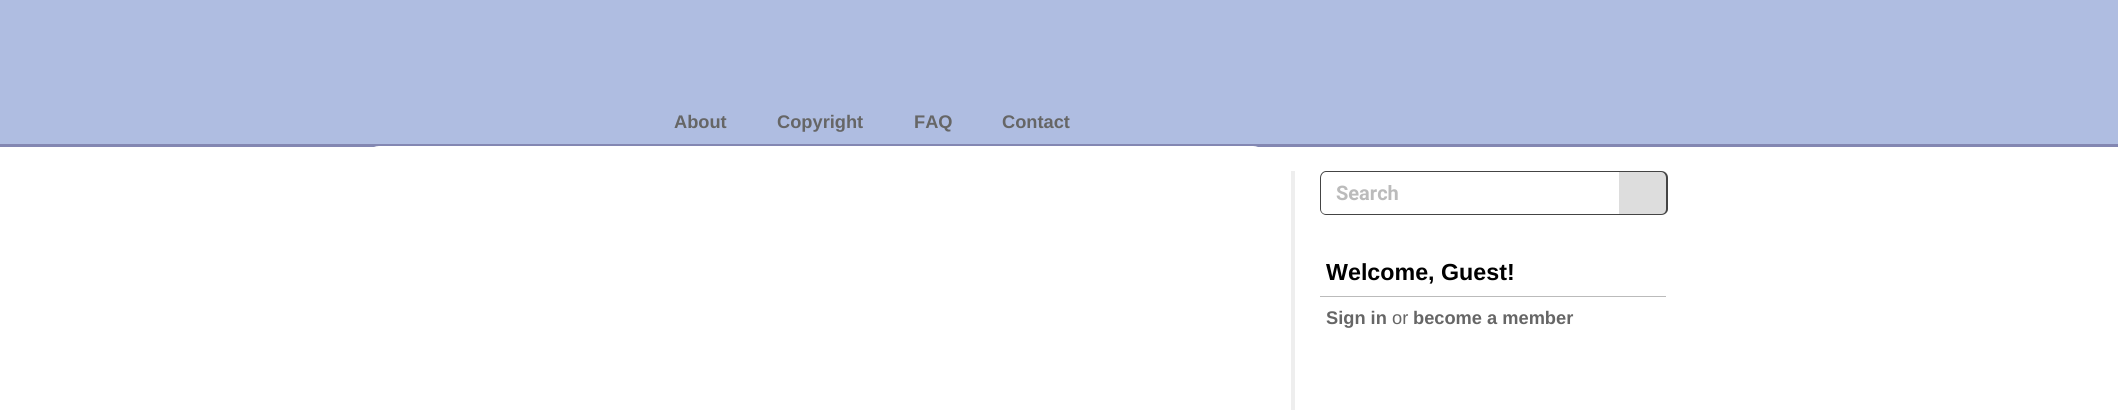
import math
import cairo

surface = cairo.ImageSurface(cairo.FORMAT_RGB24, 2118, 410)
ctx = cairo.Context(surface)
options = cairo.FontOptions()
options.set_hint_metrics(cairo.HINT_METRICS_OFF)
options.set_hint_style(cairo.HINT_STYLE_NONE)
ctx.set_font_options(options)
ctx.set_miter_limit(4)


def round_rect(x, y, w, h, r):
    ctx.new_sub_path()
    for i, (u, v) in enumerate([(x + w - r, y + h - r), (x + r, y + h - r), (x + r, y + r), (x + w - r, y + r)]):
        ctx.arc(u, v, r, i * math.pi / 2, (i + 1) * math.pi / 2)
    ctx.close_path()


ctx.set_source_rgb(1, 1, 1)
ctx.paint()
ctx.set_source_rgb(0.686, 0.741, 0.882)
ctx.rectangle(0, 0, 2118, 144)
ctx.fill()
ctx.set_source_rgb(0.514, 0.529, 0.698)
ctx.rectangle(0, 144, 2118, 3)
ctx.fill()
ctx.select_font_face("Liberation Sans", cairo.FONT_SLANT_NORMAL, cairo.FONT_WEIGHT_BOLD)
ctx.set_font_size(18.25)
ctx.set_source_rgb(0.4, 0.4, 0.4)
ctx.move_to(674, 128)
ctx.show_text("About")
ctx.move_to(777, 128)
ctx.show_text("Copyright")
ctx.move_to(914, 128)
ctx.show_text("FAQ")
ctx.move_to(1002, 128)
ctx.show_text("Contact")
ctx.set_source_rgb(1, 1, 1)
round_rect(366, 146, 900, 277, 13)
ctx.fill()
ctx.set_source_rgb(0.933, 0.933, 0.933)
ctx.rectangle(1291, 171, 4, 239)
ctx.fill()
ctx.set_source_rgb(0.267, 0.267, 0.267)
ctx.set_fill_rule(cairo.FILL_RULE_EVEN_ODD)
ctx.new_path()
ctx.move_to(1326, 171)
ctx.line_to(1619, 171)
ctx.line_to(1619, 215)
ctx.line_to(1326, 215)
ctx.curve_to(1323, 215, 1320, 212, 1320, 209)
ctx.line_to(1320, 178)
ctx.curve_to(1320, 174, 1323, 171, 1326, 171)
ctx.close_path()
ctx.move_to(1326, 172)
ctx.line_to(1619, 172)
ctx.line_to(1619, 214)
ctx.line_to(1326, 214)
ctx.curve_to(1323, 214, 1321, 212, 1321, 209)
ctx.line_to(1321, 178)
ctx.curve_to(1321, 175, 1323, 172, 1326, 172)
ctx.close_path()
ctx.fill()
ctx.select_font_face("Roboto", cairo.FONT_SLANT_NORMAL, cairo.FONT_WEIGHT_BOLD)
ctx.set_font_size(20)
ctx.set_source_rgb(0.733, 0.733, 0.733)
ctx.move_to(1336, 200)
ctx.show_text("Search")
ctx.set_source_rgb(0.867, 0.867, 0.867)
ctx.new_path()
ctx.move_to(1619, 171)
ctx.line_to(1662, 171)
ctx.curve_to(1665.5, 171, 1668, 173.5, 1668, 177)
ctx.line_to(1668, 209)
ctx.curve_to(1668, 212.5, 1665.5, 215, 1662, 215)
ctx.line_to(1619, 215)
ctx.close_path()
ctx.fill()
ctx.set_source_rgb(0.267, 0.267, 0.267)
ctx.new_path()
ctx.move_to(1619, 171)
ctx.line_to(1661, 171)
ctx.curve_to(1665, 171, 1668, 174, 1668, 178)
ctx.line_to(1668, 209)
ctx.curve_to(1668, 212, 1665, 215, 1661, 215)
ctx.line_to(1619, 215)
ctx.close_path()
ctx.move_to(1619, 172)
ctx.line_to(1661, 172)
ctx.curve_to(1664, 172, 1666, 175, 1666, 178)
ctx.line_to(1666, 209)
ctx.curve_to(1666, 212, 1664, 214, 1661, 214)
ctx.line_to(1619, 214)
ctx.close_path()
ctx.fill()
ctx.set_source_rgb(0.733, 0.733, 0.733)
ctx.rectangle(1320, 296, 346, 1)
ctx.fill()
ctx.select_font_face("Liberation Sans", cairo.FONT_SLANT_NORMAL, cairo.FONT_WEIGHT_BOLD)
ctx.set_font_size(23.25)
ctx.set_source_rgb(0, 0, 0)
ctx.move_to(1326, 280)
ctx.show_text("Welcome, Guest!")
ctx.set_font_size(18.25)
ctx.set_source_rgb(0.4, 0.4, 0.4)
ctx.move_to(1326, 324)
ctx.show_text("Sign in")
ctx.select_font_face("Liberation Sans")
ctx.move_to(1392, 324)
ctx.show_text("or")
ctx.select_font_face("Liberation Sans", cairo.FONT_SLANT_NORMAL, cairo.FONT_WEIGHT_BOLD)
ctx.move_to(1413, 324)
ctx.show_text("become a member")
surface.write_to_png("page.png")
